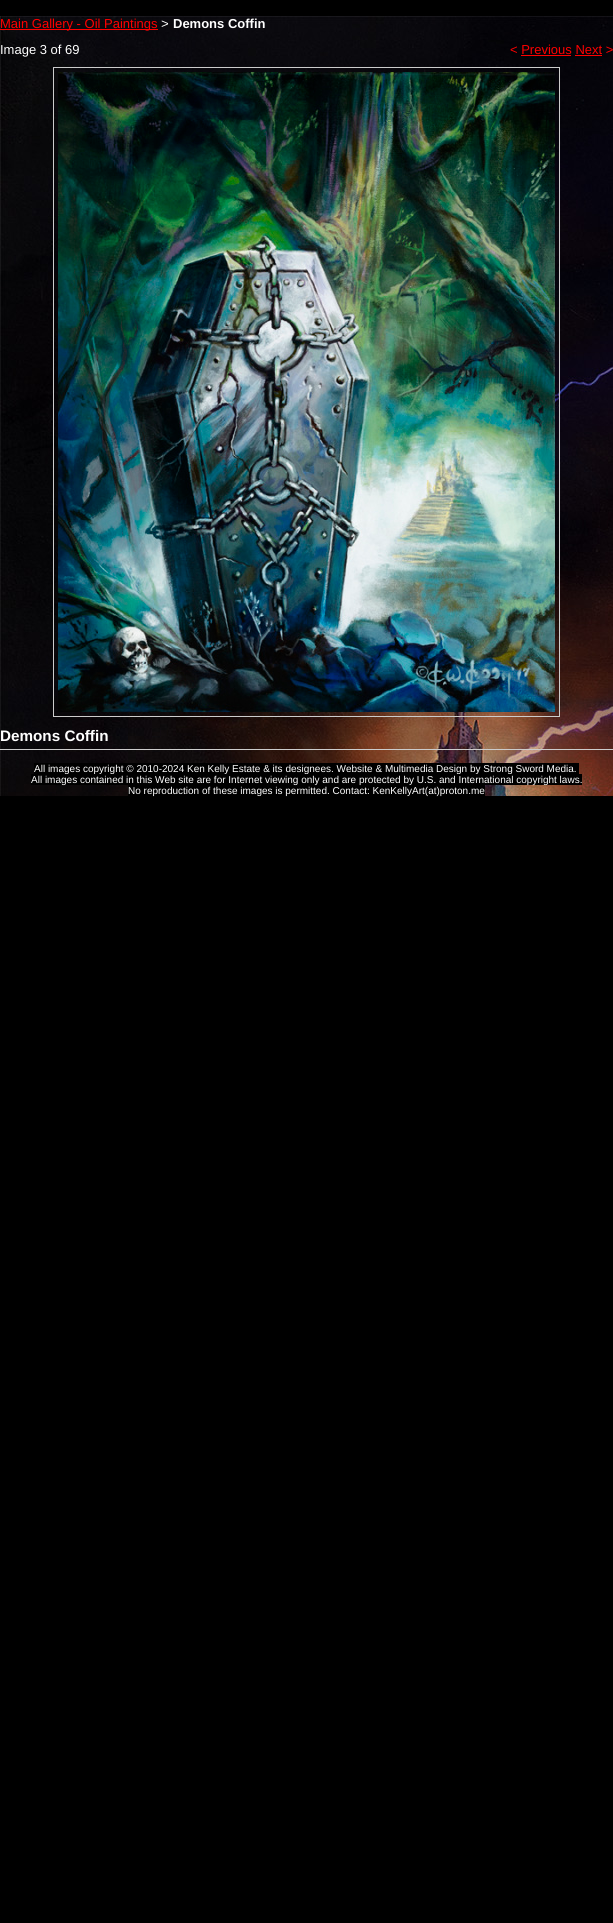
import math
import cairo

surface = cairo.ImageSurface(cairo.FORMAT_RGB24, 613, 1923)
ctx = cairo.Context(surface)
options = cairo.FontOptions()
options.set_hint_metrics(cairo.HINT_METRICS_OFF)
options.set_hint_style(cairo.HINT_STYLE_NONE)
ctx.set_font_options(options)
ctx.set_miter_limit(4)


def picture(path, x, y, w, h):
    ctx.save()
    ctx.set_source_surface(cairo.ImageSurface.create_from_png(path), x, y)
    ctx.rectangle(x, y, w, h)
    ctx.fill()
    ctx.restore()


ctx.set_source_rgb(0, 0, 0)
ctx.paint()
picture("img1.png", 0, 16, 613, 780)
ctx.set_source_rgb(1, 0, 0)
ctx.rectangle(0, 29, 158, 1)
ctx.fill()
ctx.select_font_face("Liberation Sans")
ctx.set_font_size(13)
ctx.move_to(0, 28)
ctx.show_text("Main Gallery - Oil Paintings")
ctx.select_font_face("Liberation Mono")
ctx.set_source_rgb(1, 1, 1)
ctx.move_to(161, 28)
ctx.show_text(">")
ctx.select_font_face("Liberation Sans", cairo.FONT_SLANT_NORMAL, cairo.FONT_WEIGHT_BOLD)
ctx.move_to(173, 28)
ctx.show_text("Demons Coffin")
ctx.select_font_face("Liberation Sans")
ctx.move_to(0, 54)
ctx.show_text("Image 3 of 69")
ctx.set_source_rgb(1, 0, 0)
ctx.move_to(510, 54)
ctx.show_text("< Previous Next >")
ctx.rectangle(521, 55, 50, 1)
ctx.fill()
ctx.rectangle(575, 55, 27, 1)
ctx.fill()
ctx.rectangle(53.5, 67.5, 506, 649)
ctx.set_source_rgb(0.8, 0.8, 0.8)
ctx.set_line_width(1)
ctx.stroke()
picture("img2.png", 58, 72, 497, 640)
ctx.rectangle(0, 749, 613, 1)
ctx.fill()
ctx.select_font_face("Liberation Sans", cairo.FONT_SLANT_NORMAL, cairo.FONT_WEIGHT_BOLD)
ctx.set_font_size(15.25)
ctx.set_source_rgb(1, 1, 1)
ctx.move_to(0, 741)
ctx.show_text("Demons Coffin")
ctx.set_source_rgb(0, 0, 0)
ctx.rectangle(34, 763, 545, 11)
ctx.fill()
ctx.select_font_face("Liberation Sans")
ctx.set_font_size(10)
ctx.set_source_rgb(1, 1, 1)
ctx.move_to(34, 772)
ctx.show_text("All images copyright © 2010-2024 Ken Kelly Estate & its designees. Website & Multimedia Design by Strong Sword Media.")
ctx.set_source_rgb(0, 0, 0)
ctx.rectangle(31, 774, 551, 11)
ctx.fill()
ctx.rectangle(128, 785, 357, 11)
ctx.fill()
ctx.set_source_rgb(1, 1, 1)
ctx.move_to(31, 783)
ctx.show_text("All images contained in this Web site are for Internet viewing only and are protected by U.S. and International copyright laws.")
ctx.move_to(128, 794)
ctx.show_text("No reproduction of these images is permitted. Contact: KenKellyArt(at)proton.me")
surface.write_to_png("page.png")
